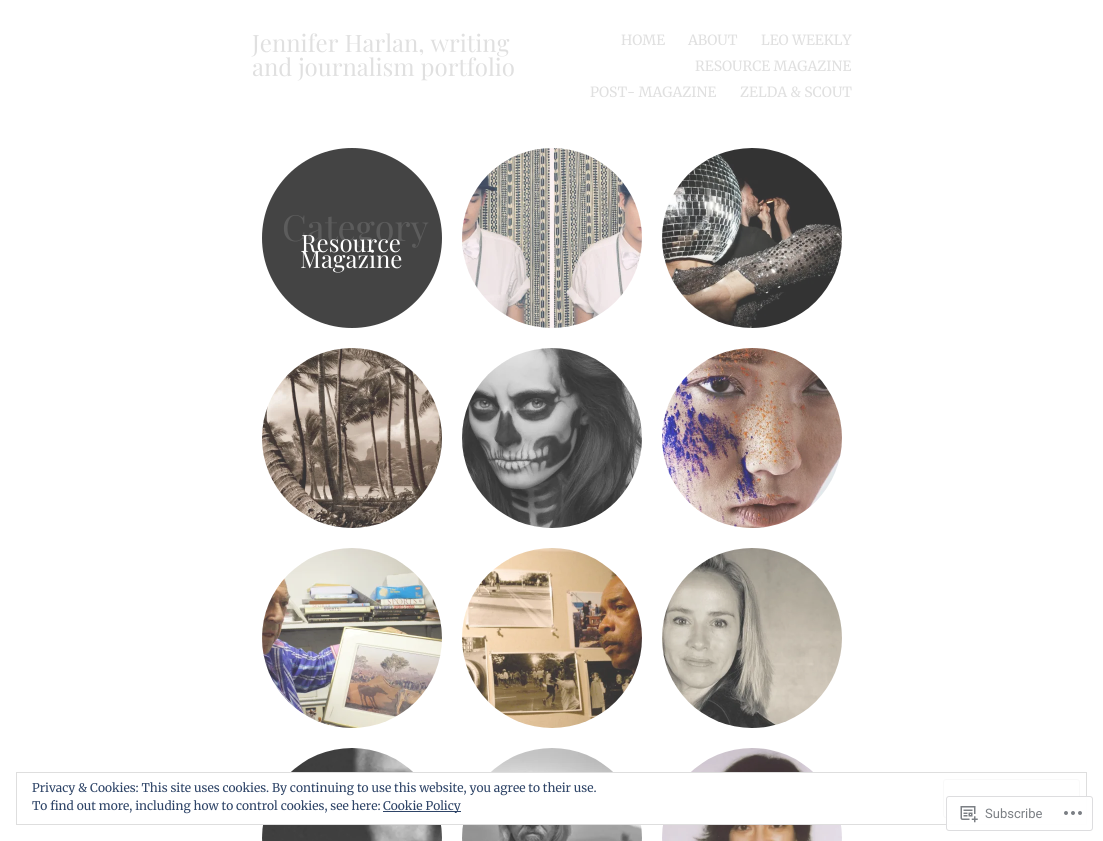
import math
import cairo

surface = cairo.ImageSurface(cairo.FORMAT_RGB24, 1103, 841)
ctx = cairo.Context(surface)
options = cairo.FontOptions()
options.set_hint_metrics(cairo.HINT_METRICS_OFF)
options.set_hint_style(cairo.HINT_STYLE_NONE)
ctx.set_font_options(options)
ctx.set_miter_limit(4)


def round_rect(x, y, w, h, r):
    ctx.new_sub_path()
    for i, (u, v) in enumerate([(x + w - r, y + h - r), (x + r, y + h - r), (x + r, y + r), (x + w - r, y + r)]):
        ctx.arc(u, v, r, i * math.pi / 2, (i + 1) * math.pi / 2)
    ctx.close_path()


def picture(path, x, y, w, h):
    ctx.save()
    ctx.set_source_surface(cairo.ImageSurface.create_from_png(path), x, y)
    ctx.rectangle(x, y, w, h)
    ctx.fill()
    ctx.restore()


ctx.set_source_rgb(1, 1, 1)
ctx.paint()
ctx.select_font_face("Playfair Display")
ctx.set_font_size(24)
ctx.set_source_rgb(0.878, 0.878, 0.878)
ctx.move_to(252, 52)
ctx.show_text("Jennifer Harlan, writing")
ctx.move_to(252, 76)
ctx.show_text("and journalism portfolio")
ctx.select_font_face("Merriweather")
ctx.set_font_size(14)
ctx.move_to(621, 45)
ctx.show_text("HOME")
ctx.move_to(688, 45)
ctx.show_text("ABOUT")
ctx.move_to(761, 45)
ctx.show_text("LEO WEEKLY")
ctx.move_to(695, 71)
ctx.show_text("RESOURCE MAGAZINE")
ctx.move_to(590, 97)
ctx.show_text("POST- MAGAZINE")
ctx.move_to(740, 97)
ctx.show_text("ZELDA & SCOUT")
ctx.set_source_rgb(0.267, 0.267, 0.267)
ctx.new_path()
ctx.arc(352, 238, 90, 0, 2 * math.pi)
ctx.fill()
ctx.select_font_face("Playfair Display")
ctx.set_font_size(36)
ctx.set_source_rgb(0.361, 0.361, 0.361)
ctx.move_to(282, 241)
ctx.show_text("Category")
ctx.set_font_size(24)
ctx.set_source_rgb(1, 1, 1)
ctx.move_to(301, 252)
ctx.show_text("Resource")
ctx.move_to(300, 268)
ctx.show_text("Magazine")
picture("img1.png", 462, 148, 180, 180)
picture("img2.png", 662, 148, 180, 180)
picture("img3.png", 262, 348, 180, 180)
picture("img4.png", 462, 348, 180, 180)
picture("img5.png", 662, 348, 180, 180)
picture("img6.png", 262, 548, 180, 180)
picture("img7.png", 462, 548, 180, 180)
picture("img8.png", 662, 548, 180, 180)
picture("img9.png", 262, 748, 180, 93)
picture("img10.png", 462, 748, 180, 93)
picture("img11.png", 662, 748, 180, 93)
ctx.rectangle(263, 773, 578, 51)
ctx.fill()
ctx.rectangle(16.5, 772.5, 1070, 52)
ctx.set_source_rgb(0.871, 0.871, 0.871)
ctx.set_line_width(1)
ctx.stroke()
ctx.select_font_face("Merriweather")
ctx.set_font_size(12)
ctx.set_source_rgb(0.18, 0.267, 0.404)
ctx.move_to(32, 792)
ctx.show_text("Privacy & Cookies: This site uses cookies. By continuing to use this website, you agree to their use.")
round_rect(943.5, 779.5, 136, 38, 2.5)
ctx.set_source_rgb(0.973, 0.973, 0.973)
ctx.stroke()
ctx.set_source_rgb(0.18, 0.267, 0.404)
ctx.move_to(32, 810)
ctx.show_text("To find out more, including how to control cookies, see here:")
ctx.rectangle(383, 811, 78, 1)
ctx.fill()
ctx.move_to(383, 810)
ctx.show_text("Cookie Policy")
ctx.set_source_rgba(1, 1, 1, 0.98)
round_rect(946.5, 796.5, 146, 34, 2.5)
ctx.fill_preserve()
ctx.set_source_rgb(0.867, 0.867, 0.875)
ctx.stroke()
picture("img12.png", 960, 806, 18, 17)
ctx.select_font_face("Roboto")
ctx.set_font_size(13)
ctx.set_source_rgb(0.482, 0.498, 0.518)
ctx.move_to(985, 818)
ctx.show_text("Subscribe")
picture("img13.png", 1064, 811, 18, 4)
surface.write_to_png("page.png")
